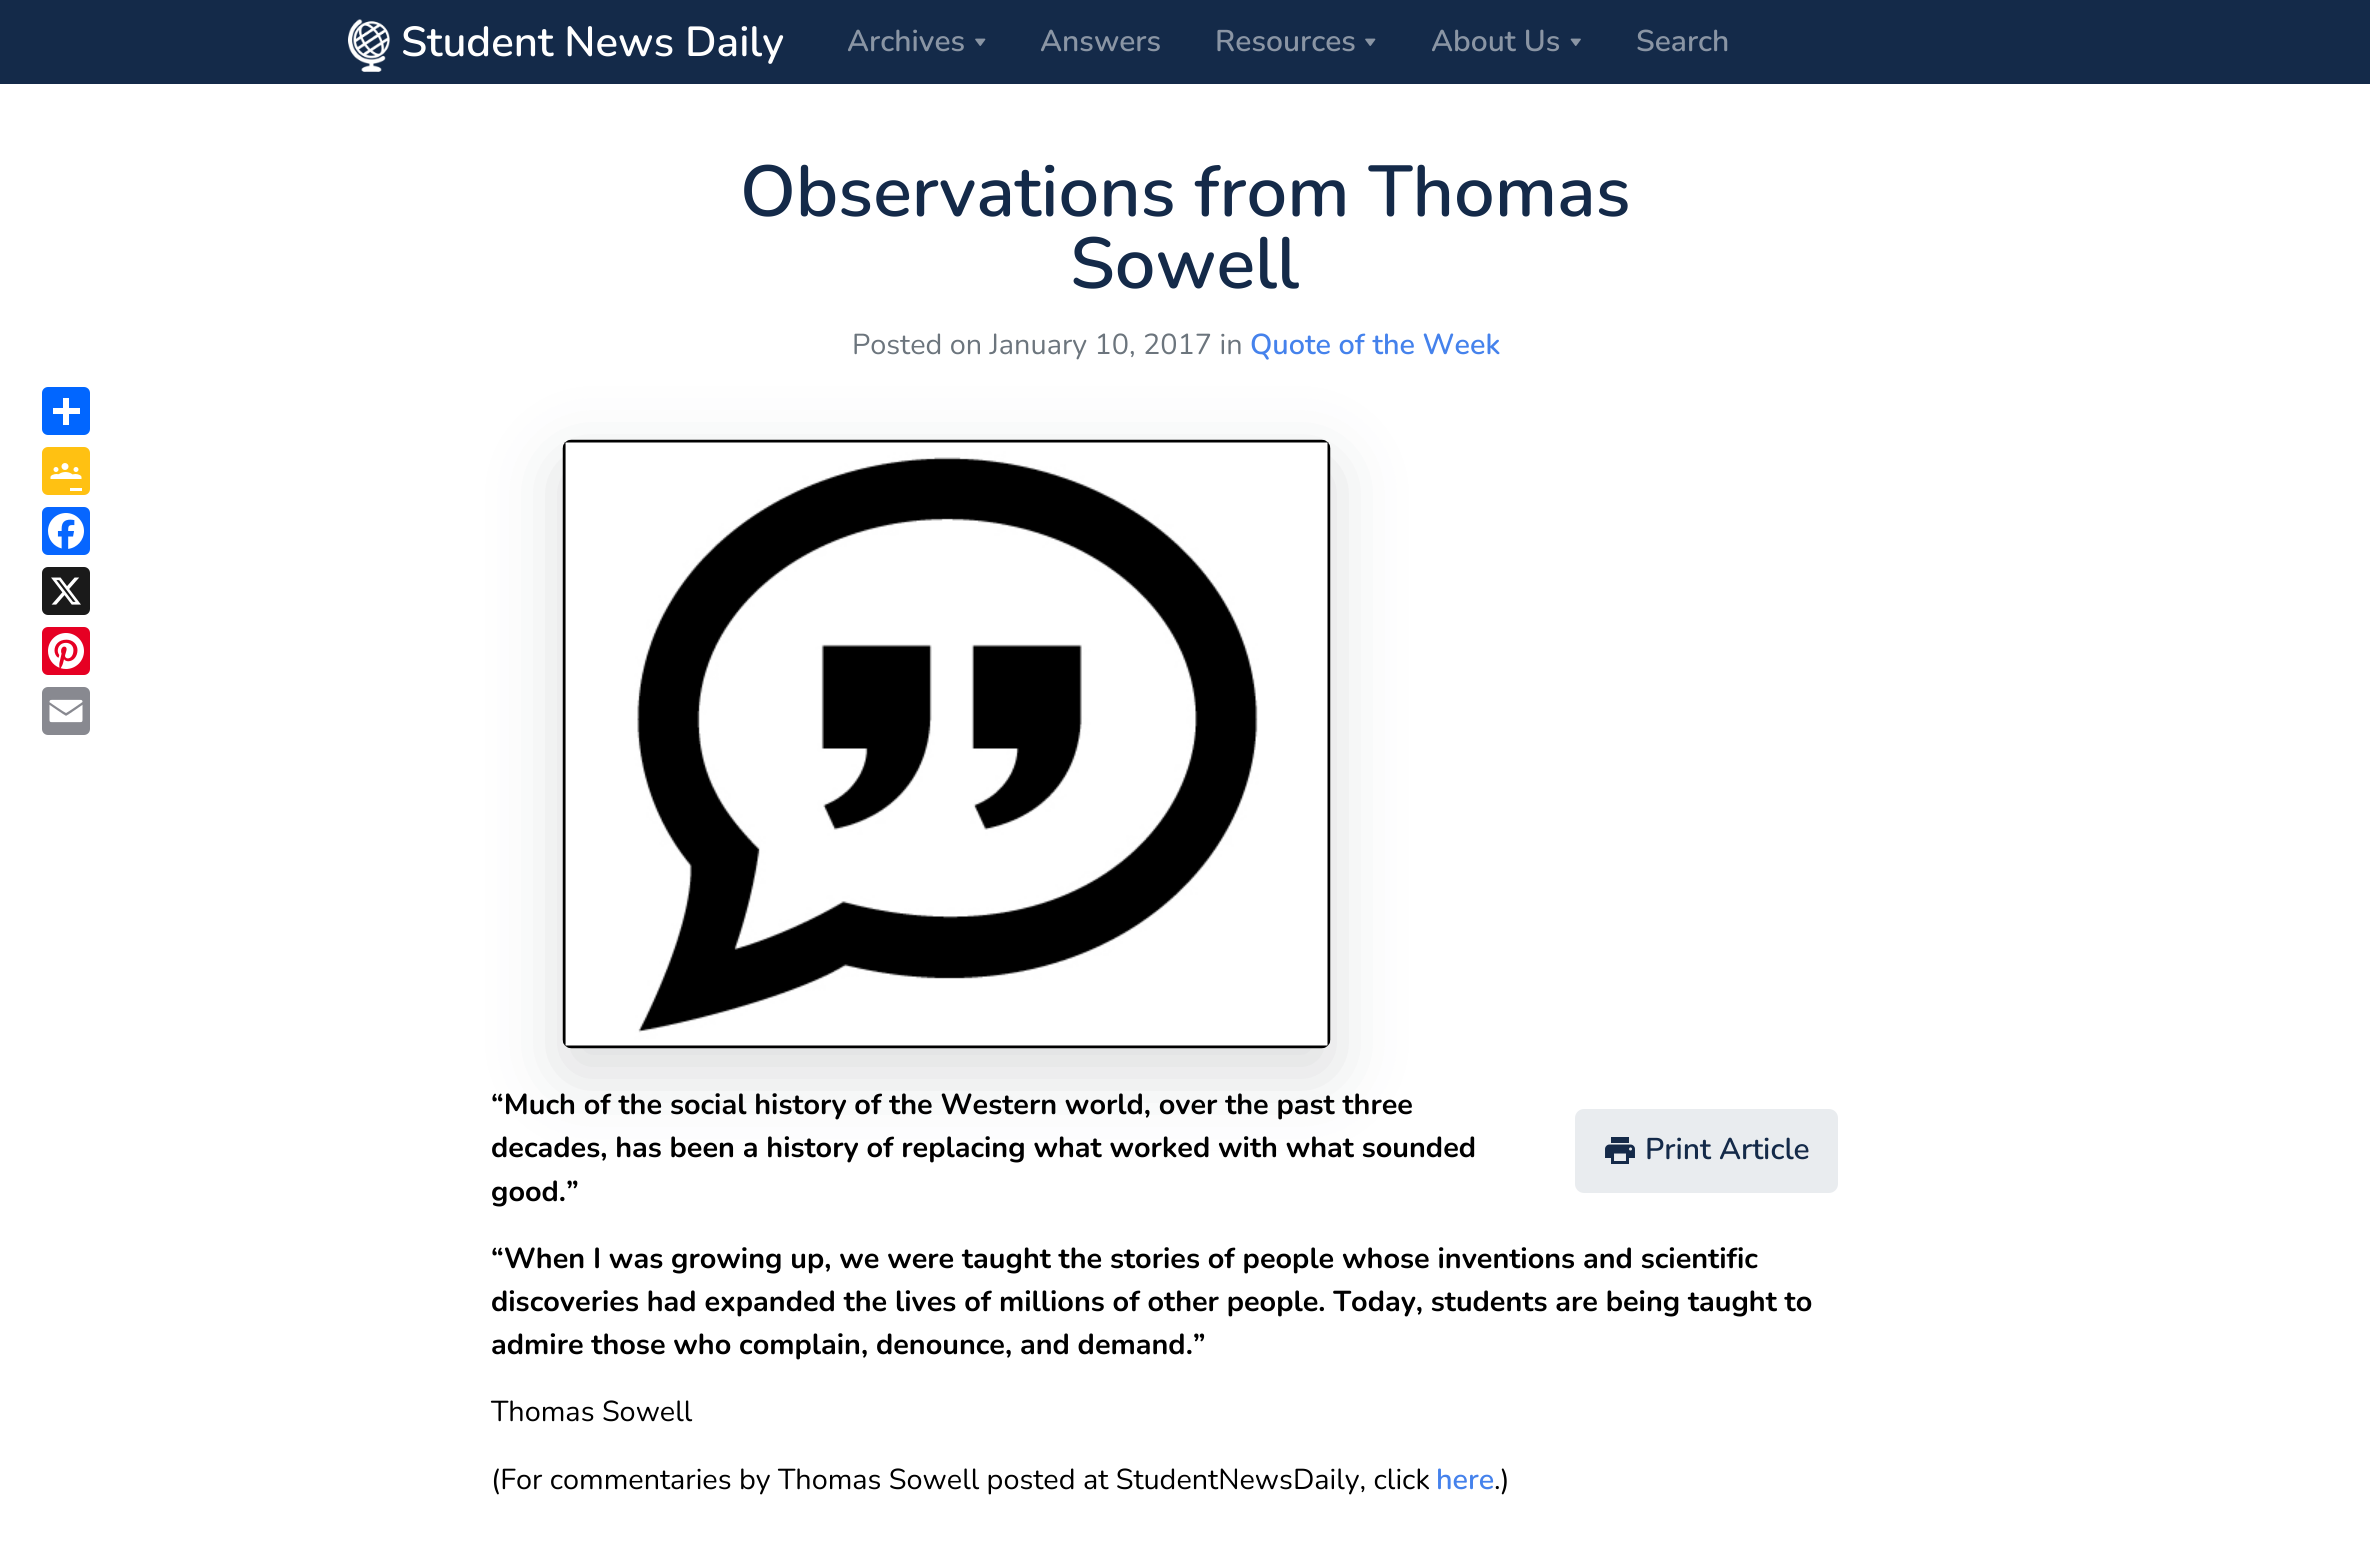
import math
import cairo

surface = cairo.ImageSurface(cairo.FORMAT_RGB24, 2370, 1557)
ctx = cairo.Context(surface)
options = cairo.FontOptions()
options.set_hint_metrics(cairo.HINT_METRICS_OFF)
options.set_hint_style(cairo.HINT_STYLE_NONE)
ctx.set_font_options(options)
ctx.set_miter_limit(4)


def round_rect(x, y, w, h, r):
    ctx.new_sub_path()
    for i, (u, v) in enumerate([(x + w - r, y + h - r), (x + r, y + h - r), (x + r, y + r), (x + w - r, y + r)]):
        ctx.arc(u, v, r, i * math.pi / 2, (i + 1) * math.pi / 2)
    ctx.close_path()


def shadow(x, y, w, h, r, blur, alpha):
    ctx.push_group_with_content(cairo.CONTENT_ALPHA)
    ctx.set_operator(cairo.OPERATOR_SOURCE)
    for i in range(15, -16, -2):
        e = blur * i / 6
        if min(w, h) + 2 * e > 0:
            ctx.set_source_rgba(0, 0, 0, alpha * math.erfc((i - 1) / 8.5) / 2)
            round_rect(x - e, y - e, w + 2 * e, h + 2 * e, max(0, min(r + e + blur * .6, min(w, h) / 2 + e)))
            ctx.fill()
    ctx.mask(ctx.pop_group())


def picture(path, x, y, w, h):
    ctx.save()
    ctx.set_source_surface(cairo.ImageSurface.create_from_png(path), x, y)
    ctx.rectangle(x, y, w, h)
    ctx.fill()
    ctx.restore()


ctx.set_source_rgb(1, 1, 1)
ctx.paint()
ctx.set_source_rgb(0.082, 0.165, 0.286)
ctx.rectangle(0, 0, 2370, 84)
ctx.fill()
picture("img1.png", 348, 19, 42, 53)
ctx.select_font_face("Nunito SemiBold")
ctx.set_font_size(42)
ctx.set_source_rgb(1, 1, 1)
ctx.move_to(401, 56)
ctx.show_text("Student News Daily")
ctx.set_font_size(30)
ctx.set_source_rgb(0.541, 0.584, 0.643)
ctx.move_to(847, 51)
ctx.show_text("Archives")
picture("img2.png", 975, 38, 11, 8)
ctx.move_to(1040, 51)
ctx.show_text("Answers")
ctx.move_to(1215, 51)
ctx.show_text("Resources")
picture("img2.png", 1365, 38, 11, 8)
ctx.move_to(1431, 51)
ctx.show_text("About Us")
picture("img3.png", 1570, 38, 11, 8)
ctx.move_to(1636, 51)
ctx.show_text("Search")
ctx.set_font_size(72)
ctx.set_source_rgb(0.082, 0.165, 0.286)
ctx.move_to(740, 216)
ctx.show_text("Observations from Thomas")
ctx.move_to(1070, 288)
ctx.show_text("Sowell")
ctx.select_font_face("Nunito")
ctx.set_font_size(28.8)
ctx.set_source_rgb(0.424, 0.459, 0.49)
ctx.move_to(852, 354)
ctx.show_text("Posted on January 10, 2017 in")
ctx.select_font_face("Nunito SemiBold")
ctx.set_source_rgb(0.271, 0.51, 0.925)
ctx.move_to(1250, 354)
ctx.show_text("Quote of the Week")
ctx.set_source_rgb(0.004, 0.4, 1)
round_rect(42, 387, 48, 48, 6)
ctx.fill()
ctx.set_source_rgb(1, 1, 1)
ctx.rectangle(63, 398, 6, 27)
ctx.fill()
ctx.rectangle(53, 408, 27, 6)
ctx.fill()
ctx.set_source_rgb(1, 0.757, 0.071)
round_rect(42, 447, 48, 48, 6)
ctx.fill()
picture("img4.png", 50, 463, 32, 28)
ctx.set_source_rgb(0.031, 0.4, 1)
round_rect(42, 507, 48, 48, 6)
ctx.fill()
picture("img5.png", 48, 513, 36, 36)
ctx.set_source_rgb(0.102, 0.102, 0.102)
round_rect(42, 567, 48, 48, 6)
ctx.fill()
picture("img6.png", 51, 577, 30, 28)
ctx.set_source_rgb(0.902, 0, 0.137)
round_rect(42, 627, 48, 48, 6)
ctx.fill()
picture("img7.png", 48, 633, 36, 36)
ctx.set_source_rgb(0.533, 0.537, 0.565)
round_rect(42, 687, 48, 48, 6)
ctx.fill()
picture("img8.png", 49, 699, 34, 24)
ctx.set_source_rgb(0.204, 0.227, 0.251)
shadow(563, 464, 768, 609, 9, 36, 0.18)
picture("img9.png", 562, 439, 769, 610)
ctx.select_font_face("Nunito", cairo.FONT_SLANT_NORMAL, cairo.FONT_WEIGHT_BOLD)
ctx.set_source_rgb(0, 0, 0)
ctx.move_to(491, 1114)
ctx.show_text("“Much of the social history of the Western world, over the past three")
ctx.move_to(491, 1157)
ctx.show_text("decades, has been a history of replacing what worked with what sounded")
ctx.move_to(491, 1201)
ctx.show_text("good.”")
ctx.move_to(491, 1268)
ctx.show_text("“When I was growing up, we were taught the stories of people whose inventions and scientific")
ctx.move_to(491, 1311)
ctx.show_text("discoveries had expanded the lives of millions of other people. Today, students are being taught to")
ctx.move_to(491, 1354)
ctx.show_text("admire those who complain, denounce, and demand.”")
ctx.select_font_face("Nunito")
ctx.move_to(491, 1421)
ctx.show_text("Thomas Sowell")
ctx.move_to(491, 1489)
ctx.show_text("(For commentaries by Thomas Sowell posted at StudentNewsDaily, click")
ctx.select_font_face("Nunito SemiBold")
ctx.set_source_rgb(0.271, 0.51, 0.925)
ctx.move_to(1436, 1489)
ctx.show_text("here")
ctx.select_font_face("Nunito")
ctx.set_source_rgb(0, 0, 0)
ctx.move_to(1494, 1489)
ctx.show_text(".)")
ctx.set_source_rgb(0.914, 0.925, 0.937)
round_rect(1575, 1109, 263, 84, 9)
ctx.fill()
picture("img10.png", 1605, 1137, 30, 27)
ctx.select_font_face("Nunito SemiBold")
ctx.set_font_size(30)
ctx.set_source_rgb(0.082, 0.165, 0.286)
ctx.move_to(1645, 1159)
ctx.show_text("Print Article")
surface.write_to_png("page.png")
